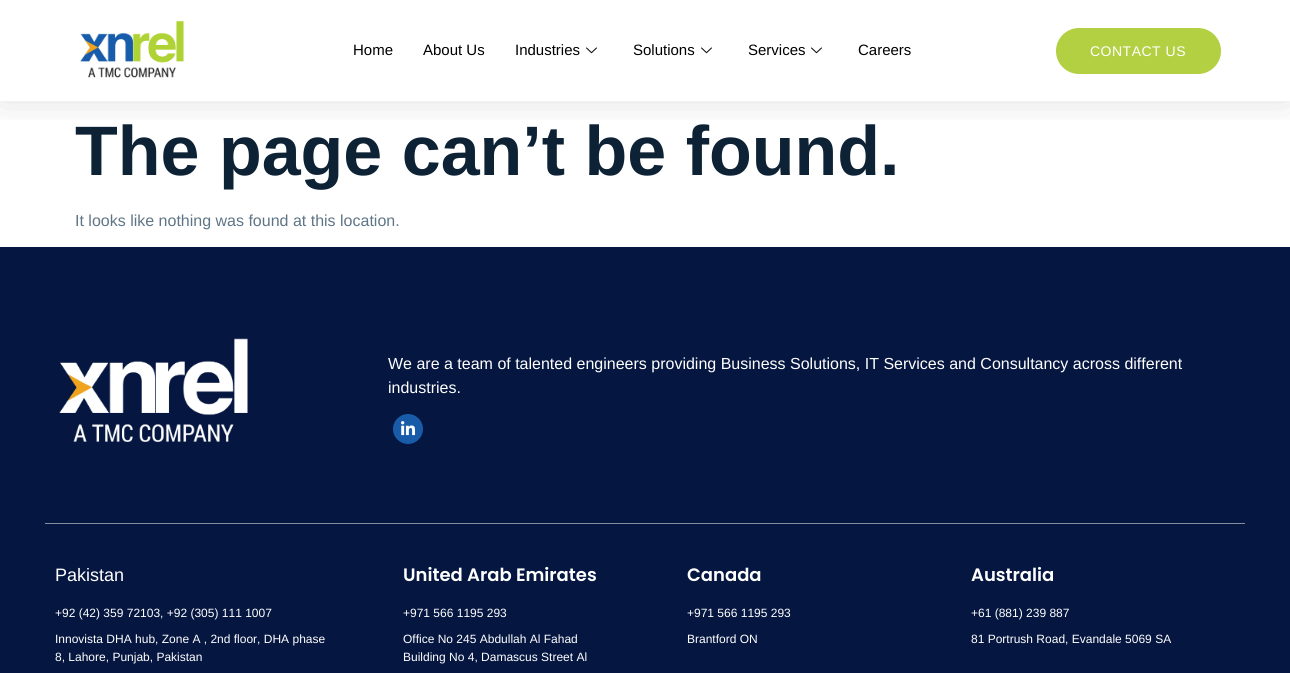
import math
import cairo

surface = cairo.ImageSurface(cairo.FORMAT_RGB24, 1290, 673)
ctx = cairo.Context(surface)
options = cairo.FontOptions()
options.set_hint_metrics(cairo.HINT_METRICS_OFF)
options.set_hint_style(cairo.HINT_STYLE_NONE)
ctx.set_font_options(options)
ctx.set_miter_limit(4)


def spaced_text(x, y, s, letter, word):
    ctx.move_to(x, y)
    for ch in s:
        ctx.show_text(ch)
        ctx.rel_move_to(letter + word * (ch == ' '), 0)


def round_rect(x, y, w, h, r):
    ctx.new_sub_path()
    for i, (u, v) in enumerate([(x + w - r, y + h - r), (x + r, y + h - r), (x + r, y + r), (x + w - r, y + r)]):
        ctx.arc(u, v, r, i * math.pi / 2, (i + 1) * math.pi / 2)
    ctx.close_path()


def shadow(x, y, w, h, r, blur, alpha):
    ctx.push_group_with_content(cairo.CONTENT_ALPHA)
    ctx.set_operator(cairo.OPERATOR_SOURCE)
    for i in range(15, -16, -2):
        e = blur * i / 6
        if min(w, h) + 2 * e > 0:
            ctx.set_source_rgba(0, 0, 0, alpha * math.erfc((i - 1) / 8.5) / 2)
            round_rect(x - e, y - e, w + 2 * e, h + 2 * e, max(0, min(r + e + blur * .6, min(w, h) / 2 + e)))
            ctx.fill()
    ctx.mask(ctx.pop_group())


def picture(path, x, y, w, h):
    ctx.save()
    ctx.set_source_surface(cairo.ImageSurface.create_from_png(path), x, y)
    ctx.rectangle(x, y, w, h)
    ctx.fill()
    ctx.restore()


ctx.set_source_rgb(1, 1, 1)
ctx.paint()
ctx.save()
ctx.rectangle(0, 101, 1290, 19)
ctx.clip()
ctx.set_source_rgb(0, 0, 0)
shadow(0, 0, 1290, 101, 0, 20, 0.12)
ctx.restore()
picture("img1.png", 80, 20, 105, 58)
ctx.select_font_face("Liberation Sans")
ctx.set_font_size(15)
ctx.set_source_rgb(0, 0, 0)
ctx.move_to(353, 55)
ctx.show_text("Home")
ctx.move_to(423, 55)
ctx.show_text("About Us")
ctx.move_to(515, 55)
ctx.show_text("Industries")
picture("img2.png", 586, 47, 11, 7)
ctx.move_to(633, 55)
ctx.show_text("Solutions")
picture("img2.png", 701, 47, 11, 7)
ctx.move_to(748, 55)
ctx.show_text("Services")
picture("img2.png", 811, 47, 11, 7)
ctx.move_to(858, 55)
ctx.show_text("Careers")
ctx.set_source_rgb(0.698, 0.816, 0.259)
round_rect(1056, 28, 165, 46, 23)
ctx.fill()
ctx.set_font_size(14)
ctx.set_source_rgb(1, 1, 1)
spaced_text(1090, 56, "CONTACT US", 0.5, 0)
ctx.select_font_face("Liberation Sans", cairo.FONT_SLANT_NORMAL, cairo.FONT_WEIGHT_BOLD)
ctx.set_font_size(70)
ctx.set_source_rgb(0.051, 0.133, 0.208)
ctx.move_to(75, 175)
ctx.show_text("The page can’t be found.")
ctx.select_font_face("Liberation Sans")
ctx.set_font_size(16)
ctx.set_source_rgb(0.373, 0.459, 0.525)
ctx.move_to(75, 226)
ctx.show_text("It looks like nothing was found at this location.")
ctx.set_source_rgb(0.02, 0.086, 0.251)
ctx.rectangle(0, 247, 1290, 426)
ctx.fill()
picture("img3.png", 59, 338, 189, 104)
ctx.set_source_rgb(1, 1, 1)
ctx.move_to(388, 369)
ctx.show_text("We are a team of talented engineers providing Business Solutions, IT Services and Consultancy across different")
ctx.move_to(388, 393)
ctx.show_text("industries.")
ctx.set_source_rgb(0.094, 0.361, 0.663)
ctx.new_path()
ctx.arc(408, 429, 15, 0, 2 * math.pi)
ctx.fill()
picture("img4.png", 401, 421, 14, 15)
ctx.set_source_rgb(0.522, 0.553, 0.631)
ctx.rectangle(45, 523, 1200, 1)
ctx.fill()
ctx.set_font_size(18)
ctx.set_source_rgb(1, 1, 1)
ctx.move_to(55, 581)
ctx.show_text("Pakistan")
ctx.set_font_size(12)
ctx.move_to(55, 617)
ctx.show_text("+92 (42) 359 72103, +92 (305) 111 1007")
ctx.move_to(55, 643)
ctx.show_text("Innovista DHA hub, Zone A , 2nd floor, DHA phase")
ctx.move_to(55, 661)
ctx.show_text("8, Lahore, Punjab, Pakistan")
ctx.select_font_face("Poppins SemiBold")
ctx.set_font_size(18)
ctx.move_to(403, 581)
ctx.show_text("United Arab Emirates")
ctx.select_font_face("Liberation Sans")
ctx.set_font_size(12)
ctx.move_to(403, 617)
ctx.show_text("+971 566 1195 293")
ctx.move_to(403, 643)
ctx.show_text("Office No 245 Abdullah Al Fahad")
ctx.move_to(403, 661)
ctx.show_text("Building No 4, Damascus Street Al")
ctx.select_font_face("Poppins SemiBold")
ctx.set_font_size(18)
ctx.move_to(687, 581)
ctx.show_text("Canada")
ctx.select_font_face("Liberation Sans")
ctx.set_font_size(12)
ctx.move_to(687, 617)
ctx.show_text("+971 566 1195 293")
ctx.move_to(687, 643)
ctx.show_text("Brantford ON")
ctx.select_font_face("Poppins SemiBold")
ctx.set_font_size(18)
ctx.move_to(971, 581)
ctx.show_text("Australia")
ctx.select_font_face("Liberation Sans")
ctx.set_font_size(12)
ctx.move_to(971, 617)
ctx.show_text("+61 (881) 239 887")
ctx.move_to(971, 643)
ctx.show_text("81 Portrush Road, Evandale 5069 SA")
surface.write_to_png("page.png")
